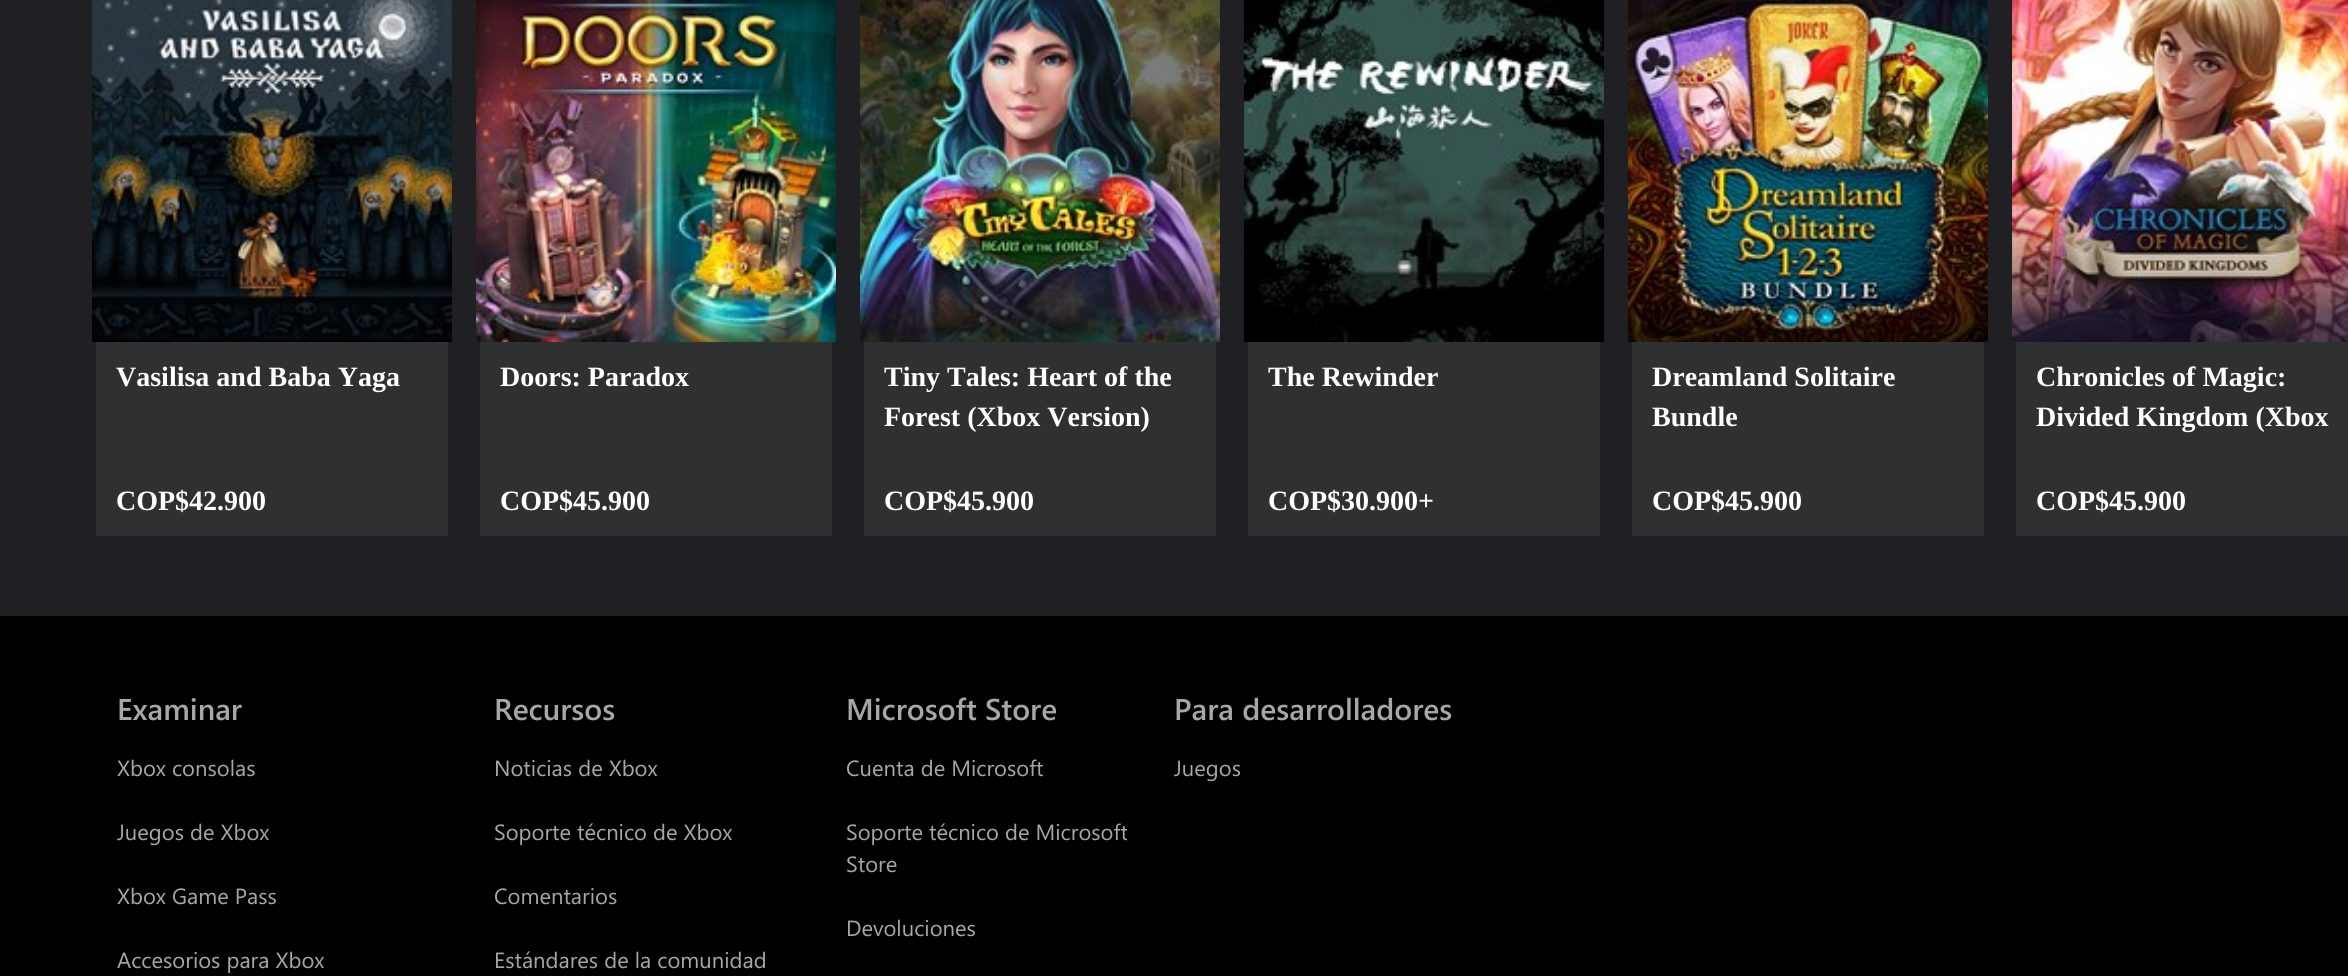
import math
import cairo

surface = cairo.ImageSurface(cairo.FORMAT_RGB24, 2348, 976)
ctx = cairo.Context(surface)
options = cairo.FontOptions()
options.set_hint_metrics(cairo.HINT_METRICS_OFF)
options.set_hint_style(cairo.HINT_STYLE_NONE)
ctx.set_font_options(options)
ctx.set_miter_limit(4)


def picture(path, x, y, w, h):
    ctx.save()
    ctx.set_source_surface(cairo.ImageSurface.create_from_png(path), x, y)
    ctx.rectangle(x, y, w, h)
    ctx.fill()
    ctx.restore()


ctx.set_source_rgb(0.125, 0.122, 0.141)
ctx.paint()
ctx.set_source_rgb(0.184, 0.188, 0.196)
ctx.rectangle(96, 342, 352, 194)
ctx.fill()
picture("img1.png", 92, 0, 360, 342)
ctx.select_font_face("Liberation Serif", cairo.FONT_SLANT_NORMAL, cairo.FONT_WEIGHT_BOLD)
ctx.set_font_size(28)
ctx.set_source_rgb(1, 1, 1)
ctx.move_to(116, 386)
ctx.show_text("Vasilisa and Baba Yaga")
ctx.move_to(116, 510)
ctx.show_text("COP$42.900")
ctx.set_source_rgb(0.184, 0.188, 0.196)
ctx.rectangle(480, 342, 352, 194)
ctx.fill()
picture("img2.png", 476, 0, 360, 342)
ctx.set_source_rgb(1, 1, 1)
ctx.move_to(500, 386)
ctx.show_text("Doors: Paradox")
ctx.move_to(500, 510)
ctx.show_text("COP$45.900")
ctx.set_source_rgb(0.184, 0.188, 0.196)
ctx.rectangle(864, 342, 352, 194)
ctx.fill()
picture("img3.png", 860, 0, 360, 342)
ctx.set_source_rgb(1, 1, 1)
ctx.move_to(884, 386)
ctx.show_text("Tiny Tales: Heart of the")
ctx.move_to(884, 426)
ctx.show_text("Forest (Xbox Version)")
ctx.move_to(884, 510)
ctx.show_text("COP$45.900")
ctx.set_source_rgb(0.184, 0.188, 0.196)
ctx.rectangle(1248, 342, 352, 194)
ctx.fill()
picture("img4.png", 1244, 0, 360, 342)
ctx.set_source_rgb(1, 1, 1)
ctx.move_to(1268, 386)
ctx.show_text("The Rewinder")
ctx.move_to(1268, 510)
ctx.show_text("COP$30.900+")
ctx.set_source_rgb(0.184, 0.188, 0.196)
ctx.rectangle(1632, 342, 352, 194)
ctx.fill()
picture("img5.png", 1628, 0, 360, 342)
ctx.set_source_rgb(1, 1, 1)
ctx.move_to(1652, 386)
ctx.show_text("Dreamland Solitaire")
ctx.move_to(1652, 426)
ctx.show_text("Bundle")
ctx.move_to(1652, 510)
ctx.show_text("COP$45.900")
ctx.set_source_rgb(0.184, 0.188, 0.196)
ctx.rectangle(2016, 342, 332, 194)
ctx.fill()
picture("img6.png", 2012, 0, 336, 342)
ctx.set_source_rgb(1, 1, 1)
ctx.move_to(2036, 386)
ctx.show_text("Chronicles of Magic:")
ctx.move_to(2036, 426)
ctx.show_text("Divided Kingdom (Xbox")
ctx.move_to(2036, 510)
ctx.show_text("COP$45.900")
ctx.set_source_rgb(0, 0, 0)
ctx.rectangle(0, 616, 2348, 360)
ctx.fill()
ctx.select_font_face("Segoe UI SemiBold")
ctx.set_font_size(30)
ctx.set_source_rgb(0.655, 0.655, 0.655)
ctx.move_to(117, 720)
ctx.show_text("Examinar")
ctx.select_font_face("Segoe UI")
ctx.set_font_size(22)
ctx.move_to(117, 776)
ctx.show_text("Xbox consolas")
ctx.move_to(117, 840)
ctx.show_text("Juegos de Xbox")
ctx.move_to(117, 904)
ctx.show_text("Xbox Game Pass")
ctx.move_to(117, 968)
ctx.show_text("Accesorios para Xbox")
ctx.select_font_face("Segoe UI SemiBold")
ctx.set_font_size(30)
ctx.move_to(494, 720)
ctx.show_text("Recursos")
ctx.select_font_face("Segoe UI")
ctx.set_font_size(22)
ctx.move_to(494, 776)
ctx.show_text("Noticias de Xbox")
ctx.move_to(494, 840)
ctx.show_text("Soporte técnico de Xbox")
ctx.move_to(494, 904)
ctx.show_text("Comentarios")
ctx.move_to(494, 968)
ctx.show_text("Estándares de la comunidad")
ctx.select_font_face("Segoe UI SemiBold")
ctx.set_font_size(30)
ctx.move_to(846, 720)
ctx.show_text("Microsoft Store")
ctx.select_font_face("Segoe UI")
ctx.set_font_size(22)
ctx.move_to(846, 776)
ctx.show_text("Cuenta de Microsoft")
ctx.move_to(846, 840)
ctx.show_text("Soporte técnico de Microsoft")
ctx.move_to(846, 872)
ctx.show_text("Store")
ctx.move_to(846, 936)
ctx.show_text("Devoluciones")
ctx.select_font_face("Segoe UI SemiBold")
ctx.set_font_size(30)
ctx.move_to(1174, 720)
ctx.show_text("Para desarrolladores")
ctx.select_font_face("Segoe UI")
ctx.set_font_size(22)
ctx.move_to(1174, 776)
ctx.show_text("Juegos")
surface.write_to_png("page.png")
